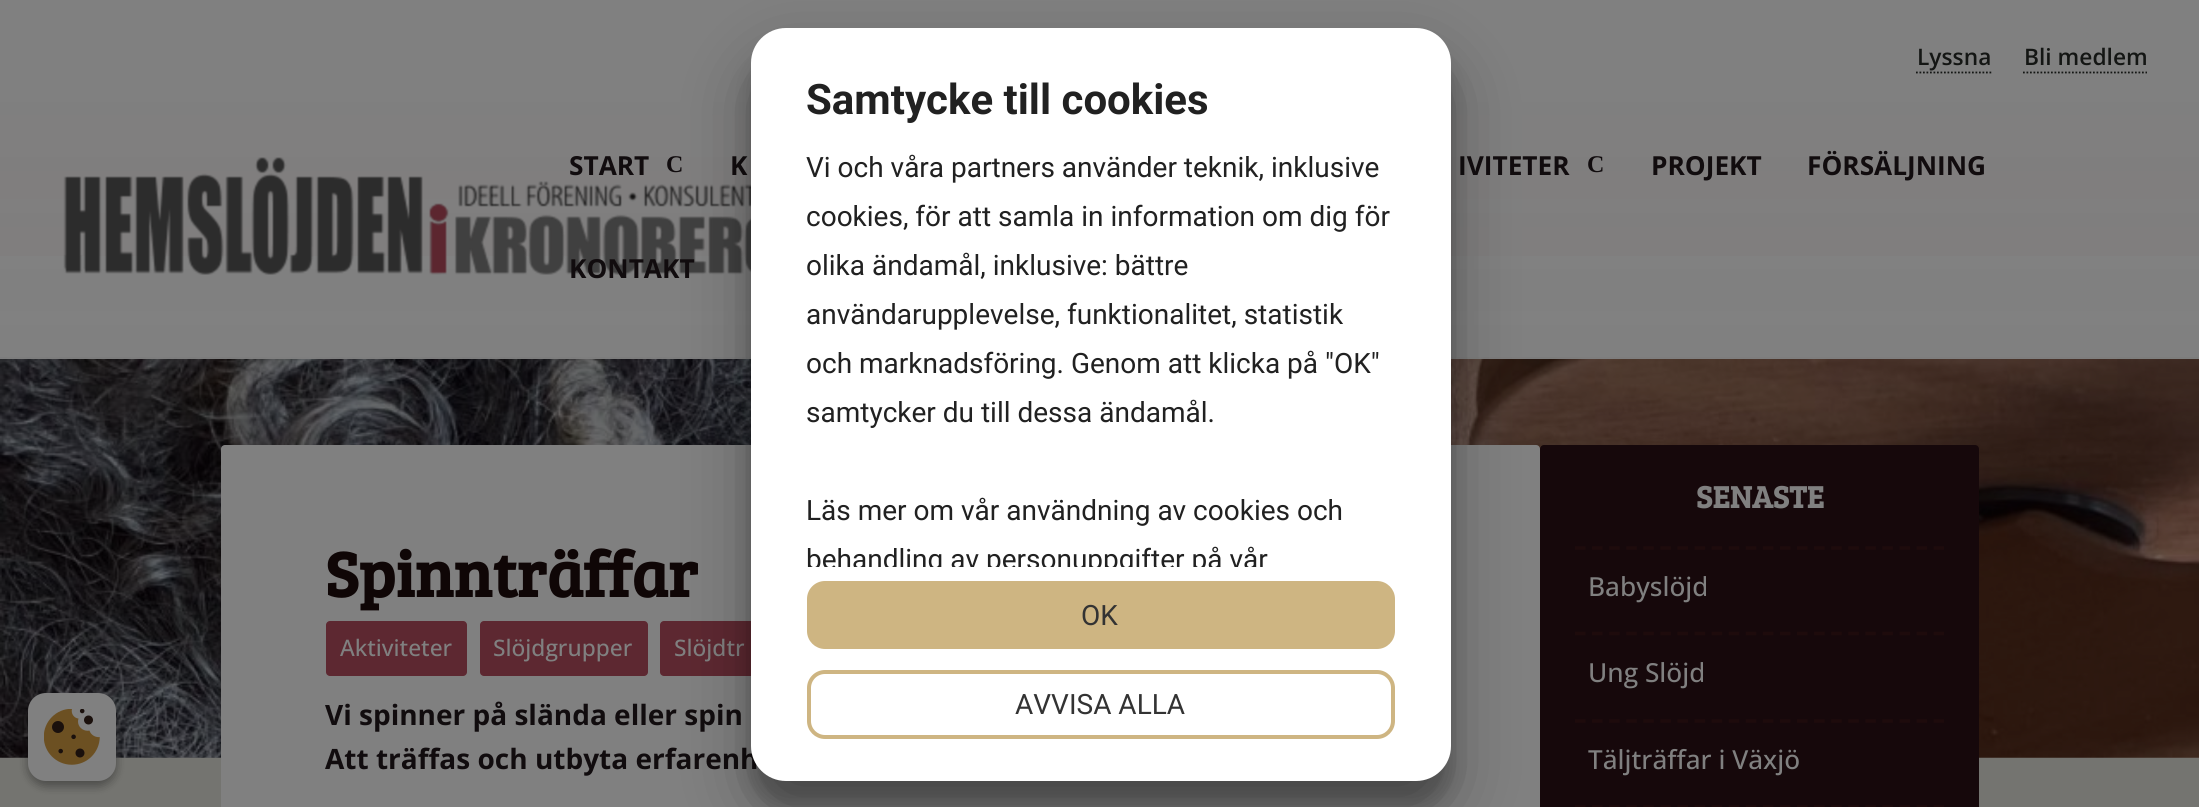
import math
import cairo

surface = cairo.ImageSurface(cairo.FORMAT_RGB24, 2199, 807)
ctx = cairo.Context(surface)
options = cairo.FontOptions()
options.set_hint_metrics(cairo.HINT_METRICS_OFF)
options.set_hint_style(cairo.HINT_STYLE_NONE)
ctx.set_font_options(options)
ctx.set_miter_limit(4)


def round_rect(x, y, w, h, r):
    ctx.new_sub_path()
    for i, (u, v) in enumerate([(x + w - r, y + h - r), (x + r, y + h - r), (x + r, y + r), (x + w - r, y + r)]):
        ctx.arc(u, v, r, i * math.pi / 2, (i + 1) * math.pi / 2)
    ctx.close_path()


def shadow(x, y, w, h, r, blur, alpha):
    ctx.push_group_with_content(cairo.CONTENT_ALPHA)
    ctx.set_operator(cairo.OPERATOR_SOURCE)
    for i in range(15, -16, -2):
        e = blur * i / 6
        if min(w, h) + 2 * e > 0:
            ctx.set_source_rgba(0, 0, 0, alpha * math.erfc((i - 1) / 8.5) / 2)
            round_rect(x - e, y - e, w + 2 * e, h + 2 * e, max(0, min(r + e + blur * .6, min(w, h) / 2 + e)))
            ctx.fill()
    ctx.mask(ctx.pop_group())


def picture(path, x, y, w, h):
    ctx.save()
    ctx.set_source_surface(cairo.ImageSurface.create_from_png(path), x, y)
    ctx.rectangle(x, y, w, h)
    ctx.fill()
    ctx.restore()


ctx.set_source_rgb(0.435, 0.102, 0.102)
ctx.paint()
ctx.set_source_rgb(0.502, 0.502, 0.502)
ctx.rectangle(0, 0, 2199, 74)
ctx.fill()
ctx.new_path()
ctx.move_to(1916, 72.5)
ctx.line_to(1991.5, 72.5)
ctx.set_source_rgb(0.082, 0.086, 0.082)
ctx.set_line_width(1.8)
ctx.set_dash([1.75, 1.75])
ctx.stroke()
ctx.select_font_face("Open Sans SemiBold")
ctx.set_font_size(22.75)
ctx.move_to(1917, 65)
ctx.show_text("Lyssna")
ctx.new_path()
ctx.move_to(2023, 72.5)
ctx.line_to(2147, 72.5)
ctx.stroke()
ctx.move_to(2024, 65)
ctx.show_text("Bli medlem")
ctx.set_source_rgb(0.502, 0.502, 0.502)
ctx.rectangle(0, 256, 2199, 101)
ctx.fill()
ctx.set_source_rgb(0.455, 0.455, 0.439)
ctx.rectangle(0, 757, 2199, 50)
ctx.fill()
picture("img2.png", 0, 357, 2199, 401)
gradient = cairo.LinearGradient(1100, 73, 1100, 359)
gradient.add_color_stop_rgba(0, 0.502, 0.502, 0.502, 1)
gradient.add_color_stop_rgba(1, 0.502, 0.502, 0.502, 0.96)
ctx.set_source(gradient)
ctx.rectangle(0, 74, 2199, 285)
ctx.fill()
picture("img1.png", 63, 157, 688, 118)
ctx.select_font_face("Open Sans", cairo.FONT_SLANT_NORMAL, cairo.FONT_WEIGHT_BOLD)
ctx.set_font_size(26.25)
ctx.set_source_rgb(0.067, 0.047, 0.055)
ctx.move_to(569, 175)
ctx.show_text("START")
ctx.select_font_face("Liberation Serif", cairo.FONT_SLANT_NORMAL, cairo.FONT_WEIGHT_BOLD)
ctx.set_font_size(24)
ctx.move_to(666, 172)
ctx.show_text("C")
ctx.select_font_face("Open Sans", cairo.FONT_SLANT_NORMAL, cairo.FONT_WEIGHT_BOLD)
ctx.set_font_size(26.25)
ctx.move_to(730, 175)
ctx.show_text("K")
ctx.move_to(1458, 175)
ctx.show_text("IVITETER")
ctx.select_font_face("Liberation Serif", cairo.FONT_SLANT_NORMAL, cairo.FONT_WEIGHT_BOLD)
ctx.set_font_size(24)
ctx.move_to(1587, 172)
ctx.show_text("C")
ctx.select_font_face("Open Sans", cairo.FONT_SLANT_NORMAL, cairo.FONT_WEIGHT_BOLD)
ctx.set_font_size(26.25)
ctx.move_to(1651, 175)
ctx.show_text("PROJEKT")
ctx.move_to(1807, 175)
ctx.show_text("FÖRSÄLJNING")
ctx.move_to(569, 278)
ctx.show_text("KONTAKT")
ctx.set_source_rgb(0.502, 0.502, 0.502)
round_rect(221, 445, 1319, 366, 4)
ctx.fill()
ctx.select_font_face("Bree Serif", cairo.FONT_SLANT_NORMAL, cairo.FONT_WEIGHT_BOLD)
ctx.set_font_size(64.75)
ctx.set_source_rgb(0.059, 0.024, 0.027)
ctx.move_to(325, 597)
ctx.show_text("Spinnträffar")
ctx.set_source_rgb(0.365, 0.157, 0.192)
round_rect(326, 621, 141, 55, 4)
ctx.fill()
ctx.select_font_face("Open Sans Medium")
ctx.set_font_size(22.75)
ctx.set_source_rgb(0.502, 0.502, 0.502)
ctx.move_to(340, 656)
ctx.show_text("Aktiviteter")
ctx.set_source_rgb(0.365, 0.157, 0.192)
round_rect(480, 621, 168, 55, 4)
ctx.fill()
ctx.set_source_rgb(0.502, 0.502, 0.502)
ctx.move_to(493, 656)
ctx.show_text("Slöjdgrupper")
ctx.set_source_rgb(0.365, 0.157, 0.192)
round_rect(660, 621, 150, 55, 4)
ctx.fill()
ctx.set_source_rgb(0.502, 0.502, 0.502)
ctx.move_to(674, 656)
ctx.show_text("Slöjdtr")
ctx.select_font_face("Open Sans", cairo.FONT_SLANT_NORMAL, cairo.FONT_WEIGHT_BOLD)
ctx.set_font_size(28)
ctx.set_source_rgb(0.067, 0.047, 0.055)
ctx.move_to(325, 725)
ctx.show_text("Vi spinner på slända eller spin")
ctx.move_to(325, 769)
ctx.show_text("Att träffas och utbyta erfarenh")
ctx.set_source_rgb(0.086, 0.035, 0.043)
round_rect(1540, 445, 439, 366, 4)
ctx.fill()
ctx.select_font_face("Bree Serif", cairo.FONT_SLANT_NORMAL, cairo.FONT_WEIGHT_BOLD)
ctx.set_font_size(31.5)
ctx.set_source_rgb(0.502, 0.502, 0.502)
ctx.move_to(1696, 508)
ctx.show_text("SENASTE")
ctx.new_path()
ctx.move_to(1575, 548)
ctx.line_to(1944, 548)
ctx.set_source_rgb(0.118, 0.043, 0.047)
ctx.set_line_width(3.5)
ctx.set_dash([10.5, 6.58])
ctx.stroke()
ctx.select_font_face("Open Sans Medium")
ctx.set_font_size(26.25)
ctx.set_source_rgb(0.502, 0.502, 0.502)
ctx.move_to(1588, 596)
ctx.show_text("Babyslöjd")
ctx.new_path()
ctx.move_to(1575, 633.5)
ctx.line_to(1944, 633.5)
ctx.set_source_rgb(0.118, 0.043, 0.047)
ctx.stroke()
ctx.set_source_rgb(0.502, 0.502, 0.502)
ctx.move_to(1588, 682)
ctx.show_text("Ung Slöjd")
ctx.new_path()
ctx.move_to(1575, 721)
ctx.line_to(1944, 721)
ctx.set_source_rgb(0.118, 0.043, 0.047)
ctx.stroke()
ctx.set_source_rgb(0.502, 0.502, 0.502)
ctx.move_to(1588, 769)
ctx.show_text("Täljträffar i Växjö")
ctx.new_path()
ctx.move_to(1575, 807)
ctx.line_to(1944, 807)
ctx.set_source_rgb(0.118, 0.043, 0.047)
ctx.stroke()
ctx.set_source_rgb(0, 0, 0)
shadow(751, 54, 700, 753, 35, 10.5, 0.22)
shadow(751, 61, 700, 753, 35, 33, 0.3)
ctx.set_source_rgb(1, 1, 1)
round_rect(751, 28, 700, 753, 35)
ctx.fill()
ctx.select_font_face("Roboto", cairo.FONT_SLANT_NORMAL, cairo.FONT_WEIGHT_BOLD)
ctx.set_font_size(42)
ctx.set_source_rgb(0.129, 0.129, 0.129)
ctx.move_to(806, 114)
ctx.show_text("Samtycke till cookies")
ctx.select_font_face("Roboto")
ctx.set_font_size(28)
ctx.move_to(806, 177)
ctx.show_text("Vi och våra partners använder teknik, inklusive")
ctx.move_to(806, 226)
ctx.show_text("cookies, för att samla in information om dig för")
ctx.move_to(806, 275)
ctx.show_text("olika ändamål, inklusive: bättre")
ctx.move_to(806, 324)
ctx.show_text("användarupplevelse, funktionalitet, statistik")
ctx.move_to(806, 373)
ctx.show_text("och marknadsföring. Genom att klicka på \"OK\"")
ctx.move_to(806, 422)
ctx.show_text("samtycker du till dessa ändamål.")
ctx.move_to(806, 520)
ctx.show_text("Läs mer om vår användning av cookies och")
ctx.move_to(806, 569)
ctx.show_text("behandling av personuppgifter på vår")
ctx.set_source_rgb(1, 1, 1)
ctx.rectangle(807, 567, 456, 8)
ctx.fill()
ctx.set_source_rgb(0.808, 0.71, 0.51)
round_rect(809, 583, 584, 64, 16)
ctx.fill_preserve()
ctx.set_line_width(4)
ctx.set_dash([])
ctx.stroke()
ctx.set_source_rgb(0.2, 0.2, 0.2)
ctx.move_to(1081, 625)
ctx.show_text("OK")
round_rect(809, 672, 584, 65, 16)
ctx.set_source_rgb(0.808, 0.71, 0.51)
ctx.stroke()
ctx.set_source_rgb(0.2, 0.2, 0.2)
ctx.move_to(1015, 714)
ctx.show_text("AVVISA ALLA")
ctx.set_source_rgb(0, 0, 0)
shadow(28, 698, 88, 88, 18, 5, 0.23)
shadow(28, 698, 88, 88, 18, 5, 0.16)
ctx.set_source_rgb(0.502, 0.502, 0.502)
round_rect(28, 693, 88, 88, 18)
ctx.fill()
picture("img3.png", 44, 709, 56, 56)
surface.write_to_png("page.png")
